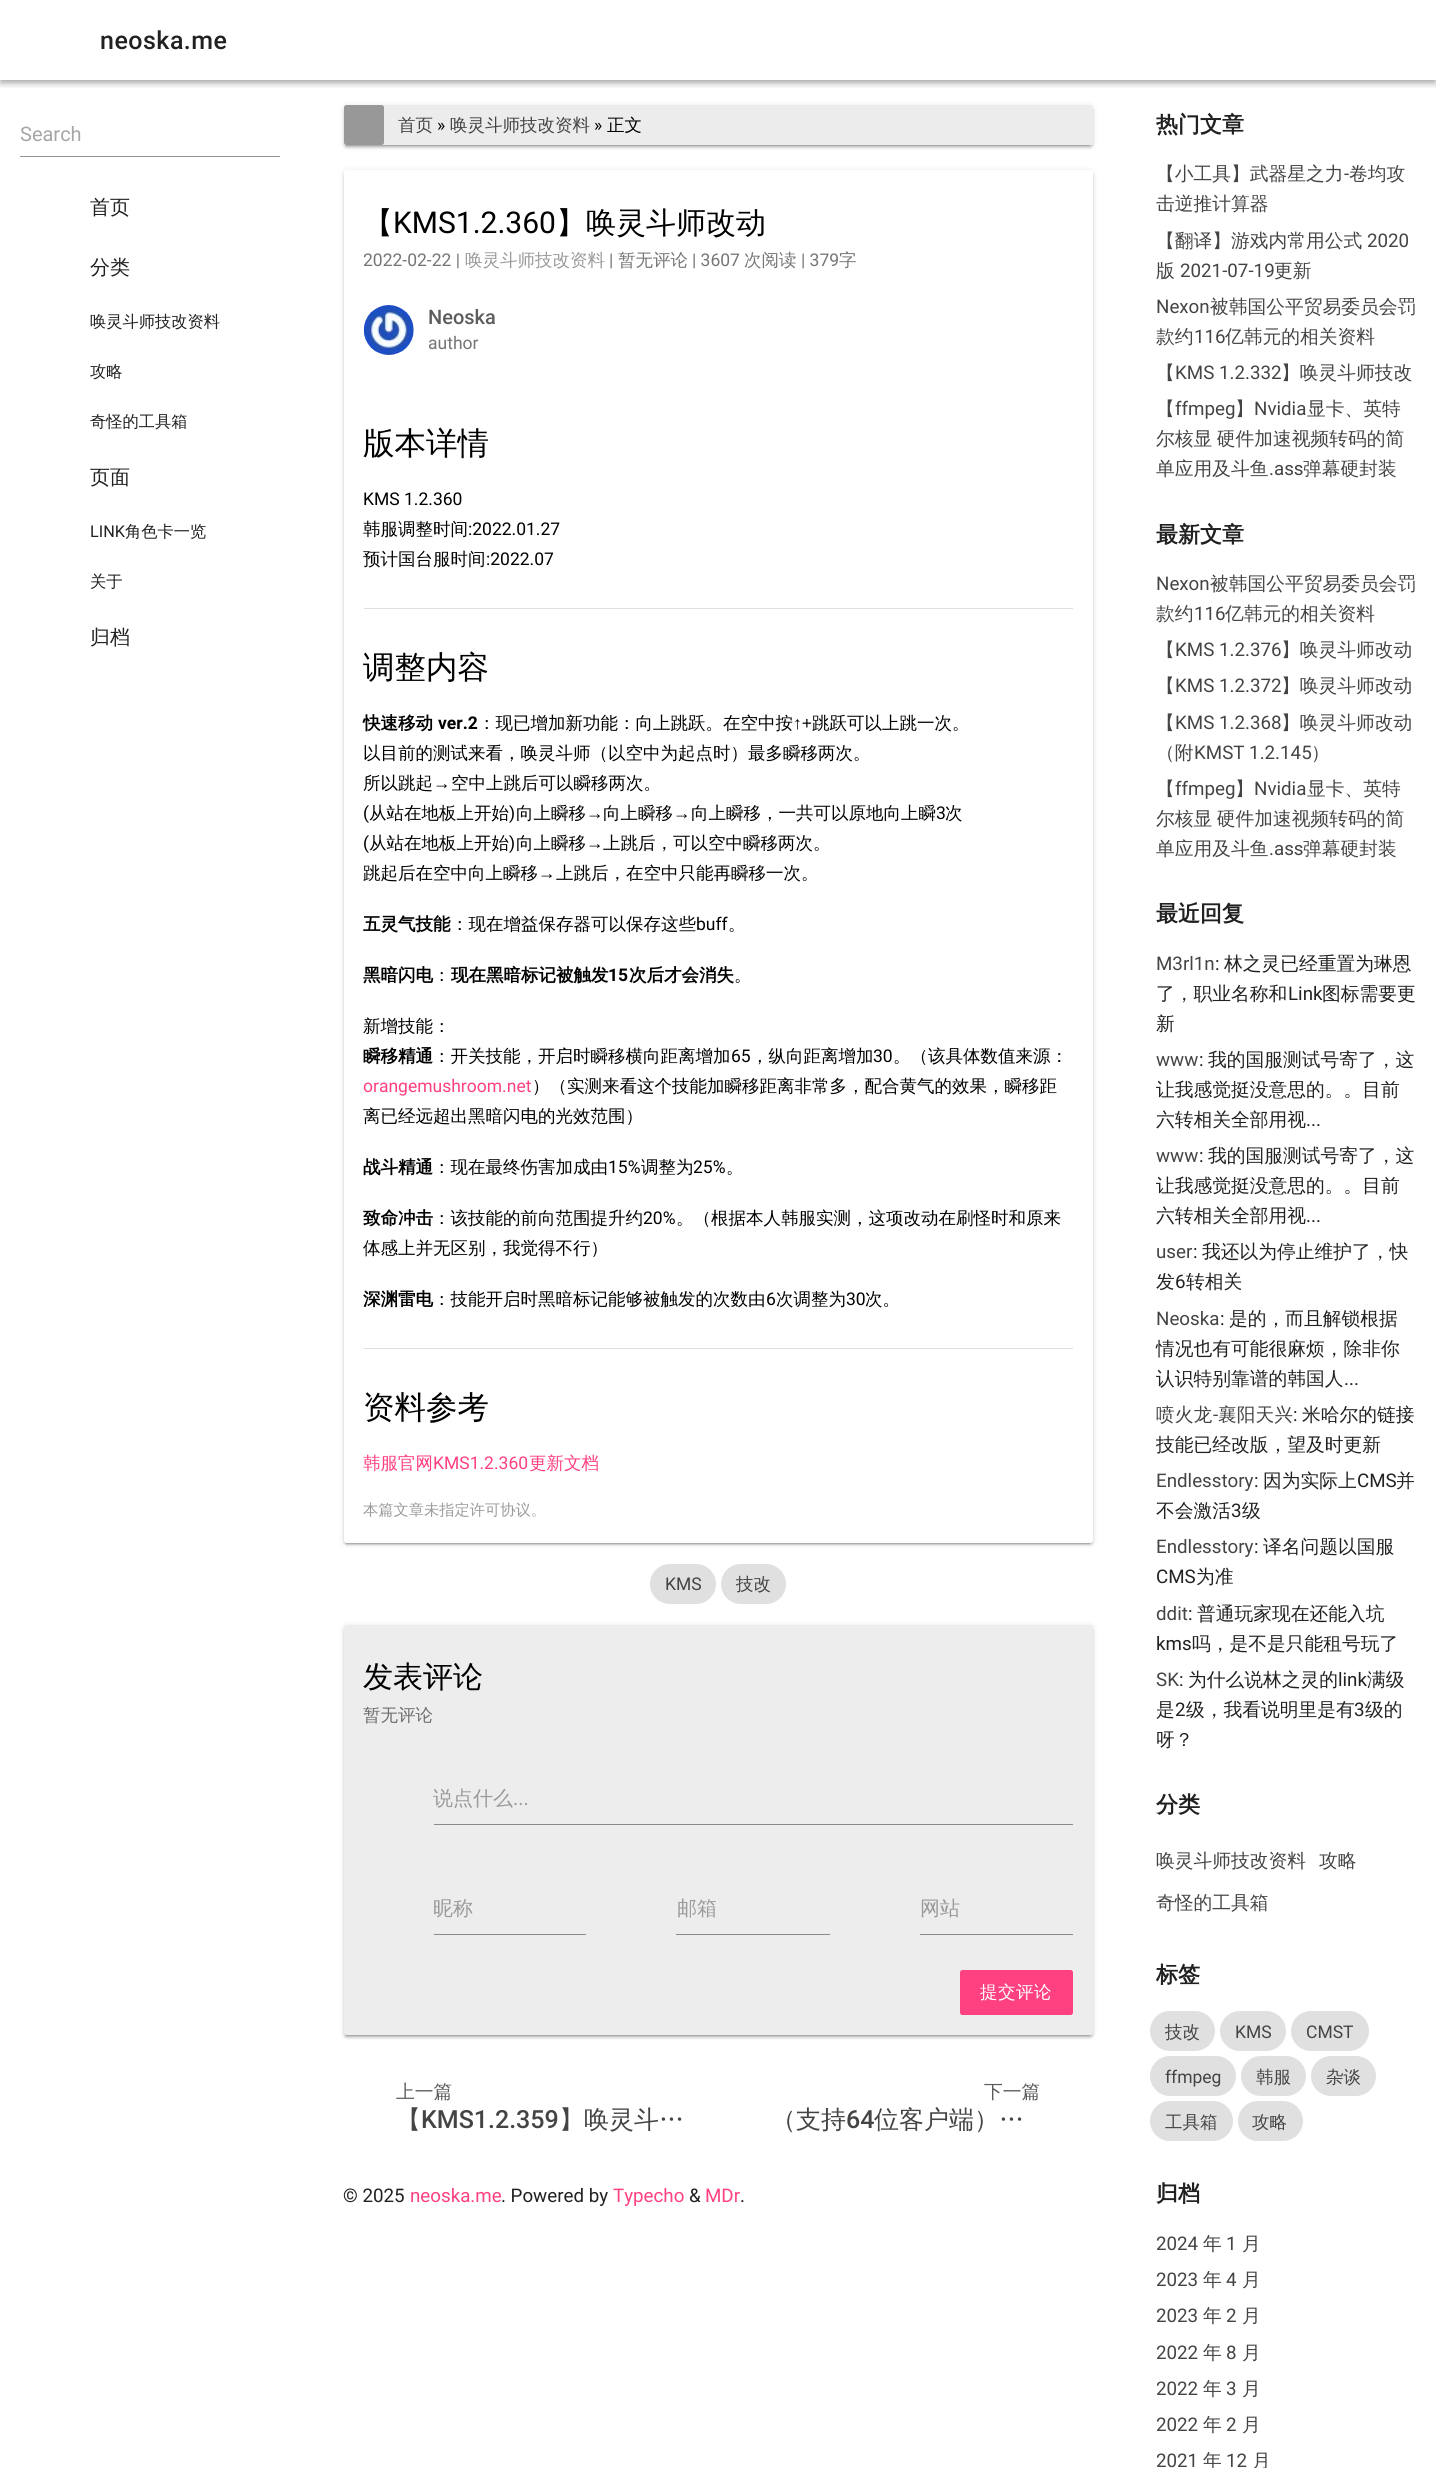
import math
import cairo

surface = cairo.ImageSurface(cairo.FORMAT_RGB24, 1436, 2468)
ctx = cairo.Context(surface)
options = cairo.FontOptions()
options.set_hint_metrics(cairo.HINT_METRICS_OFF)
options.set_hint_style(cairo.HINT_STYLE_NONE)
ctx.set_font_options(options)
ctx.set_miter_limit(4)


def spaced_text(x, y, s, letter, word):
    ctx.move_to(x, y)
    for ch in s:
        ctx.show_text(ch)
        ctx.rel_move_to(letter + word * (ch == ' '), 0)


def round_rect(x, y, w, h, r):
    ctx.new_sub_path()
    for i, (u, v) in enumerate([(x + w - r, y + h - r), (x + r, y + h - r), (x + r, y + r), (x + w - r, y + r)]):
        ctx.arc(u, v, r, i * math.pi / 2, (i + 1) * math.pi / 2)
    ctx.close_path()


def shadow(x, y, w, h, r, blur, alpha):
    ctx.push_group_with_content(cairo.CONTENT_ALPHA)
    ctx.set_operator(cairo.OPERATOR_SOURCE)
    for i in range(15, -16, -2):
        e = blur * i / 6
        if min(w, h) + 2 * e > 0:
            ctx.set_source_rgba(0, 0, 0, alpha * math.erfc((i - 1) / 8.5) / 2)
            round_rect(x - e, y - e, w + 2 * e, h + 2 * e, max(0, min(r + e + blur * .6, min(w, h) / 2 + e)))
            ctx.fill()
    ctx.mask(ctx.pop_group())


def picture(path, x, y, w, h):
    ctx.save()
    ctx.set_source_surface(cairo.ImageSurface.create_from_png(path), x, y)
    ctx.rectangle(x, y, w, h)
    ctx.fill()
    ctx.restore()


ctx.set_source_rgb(1, 1, 1)
ctx.paint()
ctx.save()
ctx.rectangle(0, 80, 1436, 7)
ctx.clip()
ctx.set_source_rgb(0, 0, 0)
shadow(0, 1, 1436, 80, 0, 6, 0.12)
ctx.restore()
ctx.save()
ctx.rectangle(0, 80, 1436, 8)
ctx.clip()
ctx.set_source_rgb(0, 0, 0)
shadow(0, 5, 1436, 80, 0, 3, 0.14)
ctx.restore()
ctx.save()
ctx.rectangle(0, 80, 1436, 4)
ctx.clip()
ctx.set_source_rgb(0, 0, 0)
shadow(1, 4, 1434, 77, 0, 2.5, 0.2)
ctx.restore()
ctx.select_font_face("Roboto Medium")
ctx.set_font_size(25)
ctx.set_source_rgb(0.129, 0.129, 0.129)
spaced_text(100, 49, "neoska.me", 0.5, 0)
ctx.select_font_face("Roboto")
ctx.set_font_size(20)
ctx.set_source_rgb(0.651, 0.651, 0.651)
ctx.move_to(20, 141)
ctx.show_text("Search")
ctx.set_source_rgb(0.58, 0.58, 0.58)
ctx.rectangle(20, 156, 260, 1)
ctx.fill()
ctx.select_font_face("WenQuanYi Zen Hei Medium")
ctx.set_source_rgb(0.129, 0.129, 0.129)
ctx.move_to(90, 214)
ctx.show_text("首页")
ctx.move_to(90, 274)
ctx.show_text("分类")
ctx.set_font_size(16.25)
ctx.move_to(90, 327)
ctx.show_text("唤灵斗师技改资料")
ctx.move_to(90, 377)
ctx.show_text("攻略")
ctx.move_to(90, 427)
ctx.show_text("奇怪的工具箱")
ctx.set_font_size(20)
ctx.move_to(90, 484)
ctx.show_text("页面")
ctx.select_font_face("Roboto")
ctx.set_font_size(16.25)
ctx.move_to(90, 537)
ctx.show_text("LINK")
ctx.select_font_face("WenQuanYi Zen Hei Medium")
ctx.move_to(125, 537)
ctx.show_text("角色卡一览")
ctx.move_to(90, 587)
ctx.show_text("关于")
ctx.set_font_size(20)
ctx.move_to(90, 644)
ctx.show_text("归档")
ctx.save()
ctx.set_fill_rule(cairo.FILL_RULE_EVEN_ODD)
ctx.new_path()
ctx.move_to(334, 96)
ctx.line_to(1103, 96)
ctx.line_to(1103, 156)
ctx.line_to(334, 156)
ctx.close_path()
ctx.move_to(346.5, 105)
ctx.line_to(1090.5, 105)
ctx.curve_to(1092, 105, 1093, 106, 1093, 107.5)
ctx.line_to(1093, 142.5)
ctx.curve_to(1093, 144, 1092, 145, 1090.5, 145)
ctx.line_to(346.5, 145)
ctx.curve_to(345, 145, 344, 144, 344, 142.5)
ctx.line_to(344, 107.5)
ctx.curve_to(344, 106, 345, 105, 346.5, 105)
ctx.close_path()
ctx.clip()
ctx.set_source_rgb(0, 0, 0)
shadow(344, 106, 749, 40, 2.5, 3, 0.12)
ctx.restore()
ctx.save()
ctx.set_fill_rule(cairo.FILL_RULE_EVEN_ODD)
ctx.new_path()
ctx.move_to(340, 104)
ctx.line_to(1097, 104)
ctx.line_to(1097, 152)
ctx.line_to(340, 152)
ctx.close_path()
ctx.move_to(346.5, 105)
ctx.line_to(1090.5, 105)
ctx.curve_to(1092, 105, 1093, 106, 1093, 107.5)
ctx.line_to(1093, 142.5)
ctx.curve_to(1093, 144, 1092, 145, 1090.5, 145)
ctx.line_to(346.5, 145)
ctx.curve_to(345, 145, 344, 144, 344, 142.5)
ctx.line_to(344, 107.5)
ctx.curve_to(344, 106, 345, 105, 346.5, 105)
ctx.close_path()
ctx.clip()
ctx.set_source_rgb(0, 0, 0)
shadow(344, 108, 749, 40, 2.5, 1, 0.14)
ctx.restore()
ctx.save()
ctx.rectangle(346, 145, 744, 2)
ctx.clip()
ctx.set_source_rgb(0, 0, 0)
shadow(346, 111, 744, 35, 0, 0.5, 0.2)
ctx.restore()
ctx.set_source_rgba(0.706, 0.706, 0.706, 0.25)
round_rect(344, 105, 749, 40, 2.5)
ctx.fill()
ctx.set_source_rgb(0.596, 0.596, 0.596)
round_rect(344, 105, 40, 40, 2.5)
ctx.fill()
ctx.set_font_size(17.5)
ctx.set_source_rgb(0.267, 0.267, 0.267)
ctx.move_to(398, 131)
ctx.show_text("首页")
ctx.select_font_face("Roboto")
ctx.set_source_rgb(0, 0, 0)
ctx.move_to(437, 131)
ctx.show_text("»")
ctx.select_font_face("WenQuanYi Zen Hei Medium")
ctx.set_source_rgb(0.267, 0.267, 0.267)
ctx.move_to(450, 131)
ctx.show_text("唤灵斗师技改资料")
ctx.select_font_face("Roboto")
ctx.set_source_rgb(0, 0, 0)
ctx.move_to(594, 131)
ctx.show_text("»")
ctx.select_font_face("WenQuanYi Zen Hei Medium")
ctx.move_to(607, 131)
ctx.show_text("正文")
ctx.set_source_rgb(0, 0, 0)
shadow(344, 171, 749, 1373, 2.5, 3, 0.12)
shadow(344, 173, 749, 1372, 2.5, 1, 0.14)
shadow(346, 176, 744, 1368, 0, 0.5, 0.2)
ctx.set_source_rgb(1, 1, 1)
round_rect(344, 170, 749, 1373, 2.5)
ctx.fill()
ctx.set_font_size(30)
ctx.set_source_rgb(0, 0, 0)
ctx.move_to(363, 233)
ctx.show_text("【")
ctx.select_font_face("Roboto")
ctx.move_to(393, 233)
ctx.show_text("KMS1.2.360")
ctx.select_font_face("WenQuanYi Zen Hei Medium")
ctx.move_to(556, 233)
ctx.show_text("】唤灵斗师改动")
ctx.select_font_face("Roboto")
ctx.set_font_size(17.5)
ctx.set_source_rgb(0.459, 0.459, 0.459)
ctx.move_to(363, 266)
ctx.show_text("2022-02-22 |")
ctx.select_font_face("WenQuanYi Zen Hei Medium")
ctx.set_source_rgb(0.604, 0.604, 0.604)
ctx.move_to(465, 266)
ctx.show_text("唤灵斗师技改资料")
ctx.select_font_face("Roboto")
ctx.set_source_rgb(0.459, 0.459, 0.459)
ctx.move_to(609, 266)
ctx.show_text("|")
ctx.select_font_face("WenQuanYi Zen Hei Medium")
ctx.move_to(618, 266)
ctx.show_text("暂无评论")
ctx.select_font_face("Roboto")
ctx.move_to(692, 266)
ctx.show_text("| 3607")
ctx.select_font_face("WenQuanYi Zen Hei Medium")
ctx.move_to(744, 266)
ctx.show_text("次阅读")
ctx.select_font_face("Roboto")
ctx.move_to(801, 266)
ctx.show_text("| 379")
ctx.select_font_face("WenQuanYi Zen Hei Medium")
ctx.move_to(839, 266)
ctx.show_text("字")
picture("img1.png", 363, 305, 51, 50)
ctx.select_font_face("Roboto Medium")
ctx.set_font_size(20)
ctx.set_source_rgb(0.361, 0.361, 0.361)
ctx.move_to(428, 324)
ctx.show_text("Neoska")
ctx.select_font_face("Roboto")
ctx.set_font_size(17.5)
ctx.set_source_rgb(0.459, 0.459, 0.459)
ctx.move_to(428, 349)
ctx.show_text("author")
ctx.select_font_face("WenQuanYi Zen Hei Medium")
ctx.set_font_size(31.5)
ctx.set_source_rgb(0, 0, 0)
ctx.move_to(363, 454)
ctx.show_text("版本详情")
ctx.select_font_face("Roboto")
ctx.set_font_size(17.5)
ctx.move_to(363, 505)
ctx.show_text("KMS 1.2.360")
ctx.select_font_face("WenQuanYi Zen Hei Medium")
ctx.move_to(363, 535)
ctx.show_text("韩服调整时间")
ctx.select_font_face("Roboto")
ctx.move_to(468, 535)
ctx.show_text(":2022.01.27")
ctx.select_font_face("WenQuanYi Zen Hei Medium")
ctx.move_to(363, 565)
ctx.show_text("预计国台服时间")
ctx.select_font_face("Roboto")
ctx.move_to(486, 565)
ctx.show_text(":2022.07")
ctx.set_source_rgb(0.878, 0.878, 0.878)
ctx.rectangle(364, 608, 709, 1)
ctx.fill()
ctx.select_font_face("WenQuanYi Zen Hei Medium")
ctx.set_font_size(31.5)
ctx.set_source_rgb(0, 0, 0)
ctx.move_to(363, 678)
ctx.show_text("调整内容")
ctx.select_font_face("WenQuanYi Zen Hei", cairo.FONT_SLANT_NORMAL, cairo.FONT_WEIGHT_BOLD)
ctx.set_font_size(17.5)
ctx.move_to(363, 729)
ctx.show_text("快速移动")
ctx.select_font_face("Roboto", cairo.FONT_SLANT_NORMAL, cairo.FONT_WEIGHT_BOLD)
ctx.move_to(438, 729)
ctx.show_text("ver.2")
ctx.select_font_face("WenQuanYi Zen Hei Medium")
ctx.move_to(478, 729)
ctx.show_text("：现已增加新功能：向上跳跃。在空中按")
ctx.select_font_face("Liberation Sans")
ctx.move_to(793, 729)
ctx.show_text("↑+")
ctx.select_font_face("WenQuanYi Zen Hei Medium")
ctx.move_to(812, 729)
ctx.show_text("跳跃可以上跳一次。")
ctx.move_to(363, 759)
ctx.show_text("以目前的测试来看，唤灵斗师（以空中为起点时）最多瞬移两次。")
ctx.move_to(363, 789)
ctx.show_text("所以跳起")
ctx.select_font_face("Liberation Sans")
ctx.move_to(433, 789)
ctx.show_text("→")
ctx.select_font_face("WenQuanYi Zen Hei Medium")
ctx.move_to(451, 789)
ctx.show_text("空中上跳后可以瞬移两次。")
ctx.select_font_face("Roboto")
ctx.move_to(363, 819)
ctx.show_text("(")
ctx.select_font_face("WenQuanYi Zen Hei Medium")
ctx.move_to(369, 819)
ctx.show_text("从站在地板上开始")
ctx.select_font_face("Roboto")
ctx.move_to(509, 819)
ctx.show_text(")")
ctx.select_font_face("WenQuanYi Zen Hei Medium")
ctx.move_to(516, 819)
ctx.show_text("向上瞬移")
ctx.select_font_face("Liberation Sans")
ctx.move_to(586, 819)
ctx.show_text("→")
ctx.select_font_face("WenQuanYi Zen Hei Medium")
ctx.move_to(603, 819)
ctx.show_text("向上瞬移")
ctx.select_font_face("Liberation Sans")
ctx.move_to(673, 819)
ctx.show_text("→")
ctx.select_font_face("WenQuanYi Zen Hei Medium")
ctx.move_to(691, 819)
ctx.show_text("向上瞬移，一共可以原地向上瞬")
ctx.select_font_face("Roboto")
ctx.move_to(936, 819)
ctx.show_text("3")
ctx.select_font_face("WenQuanYi Zen Hei Medium")
ctx.move_to(945, 819)
ctx.show_text("次")
ctx.select_font_face("Roboto")
ctx.move_to(363, 849)
ctx.show_text("(")
ctx.select_font_face("WenQuanYi Zen Hei Medium")
ctx.move_to(369, 849)
ctx.show_text("从站在地板上开始")
ctx.select_font_face("Roboto")
ctx.move_to(509, 849)
ctx.show_text(")")
ctx.select_font_face("WenQuanYi Zen Hei Medium")
ctx.move_to(516, 849)
ctx.show_text("向上瞬移")
ctx.select_font_face("Liberation Sans")
ctx.move_to(586, 849)
ctx.show_text("→")
ctx.select_font_face("WenQuanYi Zen Hei Medium")
ctx.move_to(603, 849)
ctx.show_text("上跳后，可以空中瞬移两次。")
ctx.move_to(363, 879)
ctx.show_text("跳起后在空中向上瞬移")
ctx.select_font_face("Liberation Sans")
ctx.move_to(538, 879)
ctx.show_text("→")
ctx.select_font_face("WenQuanYi Zen Hei Medium")
ctx.move_to(556, 879)
ctx.show_text("上跳后，在空中只能再瞬移一次。")
ctx.select_font_face("WenQuanYi Zen Hei", cairo.FONT_SLANT_NORMAL, cairo.FONT_WEIGHT_BOLD)
ctx.move_to(363, 930)
ctx.show_text("五灵气技能")
ctx.select_font_face("WenQuanYi Zen Hei Medium")
ctx.move_to(451, 930)
ctx.show_text("：现在增益保存器可以保存这些")
ctx.select_font_face("Roboto")
ctx.move_to(696, 930)
ctx.show_text("buff")
ctx.select_font_face("WenQuanYi Zen Hei Medium")
ctx.move_to(728, 930)
ctx.show_text("。")
ctx.select_font_face("WenQuanYi Zen Hei", cairo.FONT_SLANT_NORMAL, cairo.FONT_WEIGHT_BOLD)
ctx.move_to(363, 981)
ctx.show_text("黑暗闪电")
ctx.select_font_face("WenQuanYi Zen Hei Medium")
ctx.move_to(433, 981)
ctx.show_text("：")
ctx.select_font_face("WenQuanYi Zen Hei", cairo.FONT_SLANT_NORMAL, cairo.FONT_WEIGHT_BOLD)
ctx.move_to(451, 981)
ctx.show_text("现在黑暗标记被触发")
ctx.select_font_face("Roboto", cairo.FONT_SLANT_NORMAL, cairo.FONT_WEIGHT_BOLD)
ctx.move_to(608, 981)
ctx.show_text("15")
ctx.select_font_face("WenQuanYi Zen Hei", cairo.FONT_SLANT_NORMAL, cairo.FONT_WEIGHT_BOLD)
ctx.move_to(629, 981)
ctx.show_text("次后才会消失")
ctx.select_font_face("WenQuanYi Zen Hei Medium")
ctx.move_to(734, 981)
ctx.show_text("。")
ctx.move_to(363, 1032)
ctx.show_text("新增技能：")
ctx.select_font_face("WenQuanYi Zen Hei", cairo.FONT_SLANT_NORMAL, cairo.FONT_WEIGHT_BOLD)
ctx.move_to(363, 1062)
ctx.show_text("瞬移精通")
ctx.select_font_face("WenQuanYi Zen Hei Medium")
ctx.move_to(433, 1062)
ctx.show_text("：开关技能，开启时瞬移横向距离增加")
ctx.select_font_face("Roboto")
ctx.move_to(731, 1062)
ctx.show_text("65")
ctx.select_font_face("WenQuanYi Zen Hei Medium")
ctx.move_to(751, 1062)
ctx.show_text("，纵向距离增加")
ctx.select_font_face("Roboto")
ctx.move_to(873, 1062)
ctx.show_text("30")
ctx.select_font_face("WenQuanYi Zen Hei Medium")
ctx.move_to(893, 1062)
ctx.show_text("。（该具体数值来源：")
ctx.select_font_face("Roboto")
ctx.set_source_rgb(1, 0.251, 0.506)
ctx.move_to(363, 1092)
ctx.show_text("orangemushroom.net")
ctx.select_font_face("WenQuanYi Zen Hei Medium")
ctx.set_source_rgb(0, 0, 0)
ctx.move_to(532, 1092)
ctx.show_text("）（实测来看这个技能加瞬移距离非常多，配合黄气的效果，瞬移距")
ctx.move_to(363, 1122)
ctx.show_text("离已经远超出黑暗闪电的光效范围）")
ctx.select_font_face("WenQuanYi Zen Hei", cairo.FONT_SLANT_NORMAL, cairo.FONT_WEIGHT_BOLD)
ctx.move_to(363, 1173)
ctx.show_text("战斗精通")
ctx.select_font_face("WenQuanYi Zen Hei Medium")
ctx.move_to(433, 1173)
ctx.show_text("：现在最终伤害加成由")
ctx.select_font_face("Roboto")
ctx.move_to(608, 1173)
ctx.show_text("15%")
ctx.select_font_face("WenQuanYi Zen Hei Medium")
ctx.move_to(641, 1173)
ctx.show_text("调整为")
ctx.select_font_face("Roboto")
ctx.move_to(693, 1173)
ctx.show_text("25%")
ctx.select_font_face("WenQuanYi Zen Hei Medium")
ctx.move_to(726, 1173)
ctx.show_text("。")
ctx.select_font_face("WenQuanYi Zen Hei", cairo.FONT_SLANT_NORMAL, cairo.FONT_WEIGHT_BOLD)
ctx.move_to(363, 1224)
ctx.show_text("致命冲击")
ctx.select_font_face("WenQuanYi Zen Hei Medium")
ctx.move_to(433, 1224)
ctx.show_text("：该技能的前向范围提升约")
ctx.select_font_face("Roboto")
ctx.move_to(643, 1224)
ctx.show_text("20%")
ctx.select_font_face("WenQuanYi Zen Hei Medium")
ctx.move_to(676, 1224)
ctx.show_text("。（根据本人韩服实测，这项改动在刷怪时和原来")
ctx.move_to(363, 1254)
ctx.show_text("体感上并无区别，我觉得不行）")
ctx.select_font_face("WenQuanYi Zen Hei", cairo.FONT_SLANT_NORMAL, cairo.FONT_WEIGHT_BOLD)
ctx.move_to(363, 1305)
ctx.show_text("深渊雷电")
ctx.select_font_face("WenQuanYi Zen Hei Medium")
ctx.move_to(433, 1305)
ctx.show_text("：技能开启时黑暗标记能够被触发的次数由")
ctx.select_font_face("Roboto")
ctx.move_to(766, 1305)
ctx.show_text("6")
ctx.select_font_face("WenQuanYi Zen Hei Medium")
ctx.move_to(776, 1305)
ctx.show_text("次调整为")
ctx.select_font_face("Roboto")
ctx.move_to(846, 1305)
ctx.show_text("30")
ctx.select_font_face("WenQuanYi Zen Hei Medium")
ctx.move_to(865, 1305)
ctx.show_text("次。")
ctx.set_source_rgb(0.878, 0.878, 0.878)
ctx.rectangle(364, 1348, 709, 1)
ctx.fill()
ctx.set_font_size(31.5)
ctx.set_source_rgb(0, 0, 0)
ctx.move_to(363, 1418)
ctx.show_text("资料参考")
ctx.set_font_size(17.5)
ctx.set_source_rgb(1, 0.251, 0.506)
ctx.move_to(363, 1469)
ctx.show_text("韩服官网")
ctx.select_font_face("Roboto")
ctx.move_to(433, 1469)
ctx.show_text("KMS1.2.360")
ctx.select_font_face("WenQuanYi Zen Hei Medium")
ctx.move_to(529, 1469)
ctx.show_text("更新文档")
ctx.set_font_size(15.25)
ctx.set_source_rgb(0.604, 0.604, 0.604)
ctx.move_to(363, 1515)
ctx.show_text("本篇文章未指定许可协议。")
ctx.set_source_rgb(0.878, 0.878, 0.878)
round_rect(650, 1564, 66, 40, 20)
ctx.fill()
ctx.select_font_face("Roboto")
ctx.set_font_size(17.5)
ctx.set_source_rgb(0.267, 0.267, 0.267)
ctx.move_to(665, 1590)
ctx.show_text("KMS")
ctx.set_source_rgb(0.878, 0.878, 0.878)
round_rect(721, 1564, 65, 40, 20)
ctx.fill()
ctx.select_font_face("WenQuanYi Zen Hei Medium")
ctx.set_source_rgb(0.267, 0.267, 0.267)
ctx.move_to(736, 1590)
ctx.show_text("技改")
ctx.set_source_rgb(0, 0, 0)
shadow(344, 1626, 749, 410, 2.5, 3, 0.12)
shadow(344, 1628, 749, 410, 2.5, 1, 0.14)
shadow(346, 1631, 744, 405, 0, 0.5, 0.2)
ctx.set_source_rgb(0.929, 0.929, 0.929)
round_rect(344, 1625, 749, 410, 2.5)
ctx.fill()
ctx.set_font_size(30)
ctx.set_source_rgb(0, 0, 0)
ctx.move_to(363, 1687)
ctx.show_text("发表评论")
ctx.set_font_size(17.5)
ctx.set_source_rgb(0.427, 0.427, 0.427)
ctx.move_to(363, 1721)
ctx.show_text("暂无评论")
ctx.set_font_size(20)
ctx.set_source_rgb(0.604, 0.604, 0.604)
ctx.move_to(433, 1805)
ctx.show_text("说点什么")
ctx.select_font_face("Roboto")
ctx.move_to(513, 1805)
ctx.show_text("...")
ctx.set_source_rgb(0.537, 0.537, 0.537)
ctx.rectangle(434, 1824, 639, 1)
ctx.fill()
ctx.select_font_face("WenQuanYi Zen Hei Medium")
ctx.set_source_rgb(0.604, 0.604, 0.604)
ctx.move_to(433, 1915)
ctx.show_text("昵称")
ctx.set_source_rgb(0.537, 0.537, 0.537)
ctx.rectangle(434, 1934, 152, 1)
ctx.fill()
ctx.set_source_rgb(0.604, 0.604, 0.604)
ctx.move_to(677, 1915)
ctx.show_text("邮箱")
ctx.set_source_rgb(0.537, 0.537, 0.537)
ctx.rectangle(676, 1934, 154, 1)
ctx.fill()
ctx.set_source_rgb(0.604, 0.604, 0.604)
ctx.move_to(920, 1915)
ctx.show_text("网站")
ctx.set_source_rgb(0.537, 0.537, 0.537)
ctx.rectangle(920, 1934, 153, 1)
ctx.fill()
ctx.set_source_rgb(1, 0.251, 0.506)
round_rect(960, 1970, 113, 45, 2.5)
ctx.fill()
ctx.set_font_size(17.5)
ctx.set_source_rgb(1, 1, 1)
spaced_text(980, 1998, "提交评论", 0.5, 0)
ctx.set_font_size(18.75)
ctx.set_source_rgb(0.361, 0.361, 0.361)
ctx.move_to(396, 2098)
ctx.show_text("上一篇")
ctx.set_font_size(25)
ctx.set_source_rgb(0.267, 0.267, 0.267)
ctx.move_to(396, 2128)
ctx.show_text("【")
ctx.select_font_face("Roboto Medium")
ctx.move_to(421, 2128)
ctx.show_text("KMS1.2.359")
ctx.select_font_face("WenQuanYi Zen Hei Medium")
ctx.move_to(559, 2128)
ctx.show_text("】唤灵斗…")
ctx.set_font_size(18.75)
ctx.set_source_rgb(0.361, 0.361, 0.361)
ctx.move_to(984, 2098)
ctx.show_text("下一篇")
ctx.set_font_size(25)
ctx.set_source_rgb(0.267, 0.267, 0.267)
ctx.move_to(771, 2128)
ctx.show_text("（支持")
ctx.select_font_face("Roboto Medium")
ctx.move_to(846, 2128)
ctx.show_text("64")
ctx.select_font_face("WenQuanYi Zen Hei Medium")
ctx.move_to(874, 2128)
ctx.show_text("位客户端）…")
ctx.select_font_face("Roboto")
ctx.set_font_size(18.75)
ctx.set_source_rgb(0.129, 0.129, 0.129)
ctx.move_to(343, 2202)
ctx.show_text("© 2025")
ctx.set_source_rgb(1, 0.251, 0.506)
ctx.move_to(410, 2202)
ctx.show_text("neoska.me")
ctx.set_source_rgb(0.129, 0.129, 0.129)
ctx.move_to(501, 2202)
ctx.show_text(". Powered by")
ctx.set_source_rgb(1, 0.251, 0.506)
ctx.move_to(613, 2202)
ctx.show_text("Typecho")
ctx.set_source_rgb(0.129, 0.129, 0.129)
ctx.move_to(689, 2202)
ctx.show_text("&")
ctx.set_source_rgb(1, 0.251, 0.506)
ctx.move_to(705, 2202)
ctx.show_text("MDr")
ctx.set_source_rgb(0.129, 0.129, 0.129)
ctx.move_to(740, 2202)
ctx.show_text(".")
ctx.select_font_face("WenQuanYi Zen Hei", cairo.FONT_SLANT_NORMAL, cairo.FONT_WEIGHT_BOLD)
ctx.set_font_size(22)
ctx.move_to(1156, 132)
ctx.show_text("热门文章")
ctx.select_font_face("WenQuanYi Zen Hei Medium")
ctx.set_font_size(18.75)
ctx.set_source_rgb(0.267, 0.267, 0.267)
ctx.move_to(1156, 180)
ctx.show_text("【小工具】武器星之力")
ctx.select_font_face("Roboto")
ctx.move_to(1344, 180)
ctx.show_text("-")
ctx.select_font_face("WenQuanYi Zen Hei Medium")
ctx.move_to(1349, 180)
ctx.show_text("卷均攻")
ctx.move_to(1156, 210)
ctx.show_text("击逆推计算器")
ctx.move_to(1156, 247)
ctx.show_text("【翻译】游戏内常用公式")
ctx.select_font_face("Roboto")
ctx.move_to(1367, 247)
ctx.show_text("2020")
ctx.select_font_face("WenQuanYi Zen Hei Medium")
ctx.move_to(1156, 277)
ctx.show_text("版")
ctx.select_font_face("Roboto")
ctx.move_to(1180, 277)
ctx.show_text("2021-07-19")
ctx.select_font_face("WenQuanYi Zen Hei Medium")
ctx.move_to(1274, 277)
ctx.show_text("更新")
ctx.select_font_face("Roboto")
ctx.move_to(1156, 313)
ctx.show_text("Nexon")
ctx.select_font_face("WenQuanYi Zen Hei Medium")
ctx.move_to(1210, 313)
ctx.show_text("被韩国公平贸易委员会罚")
ctx.move_to(1156, 343)
ctx.show_text("款约")
ctx.select_font_face("Roboto")
ctx.move_to(1194, 343)
ctx.show_text("116")
ctx.select_font_face("WenQuanYi Zen Hei Medium")
ctx.move_to(1225, 343)
ctx.show_text("亿韩元的相关资料")
ctx.move_to(1156, 379)
ctx.show_text("【")
ctx.select_font_face("Roboto")
ctx.move_to(1175, 379)
ctx.show_text("KMS 1.2.332")
ctx.select_font_face("WenQuanYi Zen Hei Medium")
ctx.move_to(1281, 379)
ctx.show_text("】唤灵斗师技改")
ctx.move_to(1156, 415)
ctx.show_text("【")
ctx.select_font_face("Roboto")
ctx.move_to(1175, 415)
ctx.show_text("ffmpeg")
ctx.select_font_face("WenQuanYi Zen Hei Medium")
ctx.move_to(1235, 415)
ctx.show_text("】")
ctx.select_font_face("Roboto")
ctx.move_to(1254, 415)
ctx.show_text("Nvidia")
ctx.select_font_face("WenQuanYi Zen Hei Medium")
ctx.move_to(1307, 415)
ctx.show_text("显卡、英特")
spaced_text(1156, 445, "尔核显 硬件加速视频转码的简", 0, -1)
ctx.move_to(1156, 475)
ctx.show_text("单应用及斗鱼")
ctx.select_font_face("Roboto")
ctx.move_to(1269, 475)
ctx.show_text(".ass")
ctx.select_font_face("WenQuanYi Zen Hei Medium")
ctx.move_to(1303, 475)
ctx.show_text("弹幕硬封装")
ctx.select_font_face("WenQuanYi Zen Hei", cairo.FONT_SLANT_NORMAL, cairo.FONT_WEIGHT_BOLD)
ctx.set_font_size(22)
ctx.set_source_rgb(0.129, 0.129, 0.129)
ctx.move_to(1156, 542)
ctx.show_text("最新文章")
ctx.select_font_face("Roboto")
ctx.set_font_size(18.75)
ctx.set_source_rgb(0.267, 0.267, 0.267)
ctx.move_to(1156, 590)
ctx.show_text("Nexon")
ctx.select_font_face("WenQuanYi Zen Hei Medium")
ctx.move_to(1210, 590)
ctx.show_text("被韩国公平贸易委员会罚")
ctx.move_to(1156, 620)
ctx.show_text("款约")
ctx.select_font_face("Roboto")
ctx.move_to(1194, 620)
ctx.show_text("116")
ctx.select_font_face("WenQuanYi Zen Hei Medium")
ctx.move_to(1225, 620)
ctx.show_text("亿韩元的相关资料")
ctx.move_to(1156, 656)
ctx.show_text("【")
ctx.select_font_face("Roboto")
ctx.move_to(1175, 656)
ctx.show_text("KMS 1.2.376")
ctx.select_font_face("WenQuanYi Zen Hei Medium")
ctx.move_to(1281, 656)
ctx.show_text("】唤灵斗师改动")
ctx.move_to(1156, 692)
ctx.show_text("【")
ctx.select_font_face("Roboto")
ctx.move_to(1175, 692)
ctx.show_text("KMS 1.2.372")
ctx.select_font_face("WenQuanYi Zen Hei Medium")
ctx.move_to(1281, 692)
ctx.show_text("】唤灵斗师改动")
ctx.move_to(1156, 729)
ctx.show_text("【")
ctx.select_font_face("Roboto")
ctx.move_to(1175, 729)
ctx.show_text("KMS 1.2.368")
ctx.select_font_face("WenQuanYi Zen Hei Medium")
ctx.move_to(1281, 729)
ctx.show_text("】唤灵斗师改动")
ctx.move_to(1156, 759)
ctx.show_text("（附")
ctx.select_font_face("Roboto")
ctx.move_to(1194, 759)
ctx.show_text("KMST 1.2.145")
ctx.select_font_face("WenQuanYi Zen Hei Medium")
ctx.move_to(1311, 759)
ctx.show_text("）")
ctx.move_to(1156, 795)
ctx.show_text("【")
ctx.select_font_face("Roboto")
ctx.move_to(1175, 795)
ctx.show_text("ffmpeg")
ctx.select_font_face("WenQuanYi Zen Hei Medium")
ctx.move_to(1235, 795)
ctx.show_text("】")
ctx.select_font_face("Roboto")
ctx.move_to(1254, 795)
ctx.show_text("Nvidia")
ctx.select_font_face("WenQuanYi Zen Hei Medium")
ctx.move_to(1307, 795)
ctx.show_text("显卡、英特")
spaced_text(1156, 825, "尔核显 硬件加速视频转码的简", 0, -1)
ctx.move_to(1156, 855)
ctx.show_text("单应用及斗鱼")
ctx.select_font_face("Roboto")
ctx.move_to(1269, 855)
ctx.show_text(".ass")
ctx.select_font_face("WenQuanYi Zen Hei Medium")
ctx.move_to(1303, 855)
ctx.show_text("弹幕硬封装")
ctx.select_font_face("WenQuanYi Zen Hei", cairo.FONT_SLANT_NORMAL, cairo.FONT_WEIGHT_BOLD)
ctx.set_font_size(22)
ctx.set_source_rgb(0.129, 0.129, 0.129)
ctx.move_to(1156, 921)
ctx.show_text("最近回复")
ctx.select_font_face("Roboto")
ctx.set_font_size(18.75)
ctx.set_source_rgb(0.267, 0.267, 0.267)
ctx.move_to(1156, 970)
ctx.show_text("M3rl1n")
ctx.set_source_rgb(0.129, 0.129, 0.129)
ctx.move_to(1215, 970)
ctx.show_text(":")
ctx.select_font_face("WenQuanYi Zen Hei Medium")
ctx.move_to(1224, 970)
ctx.show_text("林之灵已经重置为琳恩")
ctx.move_to(1156, 1000)
ctx.show_text("了，职业名称和")
ctx.select_font_face("Roboto")
ctx.move_to(1288, 1000)
ctx.show_text("Link")
ctx.select_font_face("WenQuanYi Zen Hei Medium")
ctx.move_to(1322, 1000)
ctx.show_text("图标需要更")
ctx.move_to(1156, 1030)
ctx.show_text("新")
ctx.select_font_face("Roboto")
ctx.set_source_rgb(0.267, 0.267, 0.267)
ctx.move_to(1156, 1066)
ctx.show_text("www")
ctx.set_source_rgb(0.129, 0.129, 0.129)
ctx.move_to(1199, 1066)
ctx.show_text(":")
ctx.select_font_face("WenQuanYi Zen Hei Medium")
ctx.move_to(1208, 1066)
ctx.show_text("我的国服测试号寄了，这")
ctx.move_to(1156, 1096)
ctx.show_text("让我感觉挺没意思的。。目前")
ctx.move_to(1156, 1126)
ctx.show_text("六转相关全部用视")
ctx.select_font_face("Roboto")
ctx.move_to(1306, 1126)
ctx.show_text("...")
ctx.set_source_rgb(0.267, 0.267, 0.267)
ctx.move_to(1156, 1162)
ctx.show_text("www")
ctx.set_source_rgb(0.129, 0.129, 0.129)
ctx.move_to(1199, 1162)
ctx.show_text(":")
ctx.select_font_face("WenQuanYi Zen Hei Medium")
ctx.move_to(1208, 1162)
ctx.show_text("我的国服测试号寄了，这")
ctx.move_to(1156, 1192)
ctx.show_text("让我感觉挺没意思的。。目前")
ctx.move_to(1156, 1222)
ctx.show_text("六转相关全部用视")
ctx.select_font_face("Roboto")
ctx.move_to(1306, 1222)
ctx.show_text("...")
ctx.set_source_rgb(0.267, 0.267, 0.267)
ctx.move_to(1156, 1258)
ctx.show_text("user")
ctx.set_source_rgb(0.129, 0.129, 0.129)
ctx.move_to(1193, 1258)
ctx.show_text(":")
ctx.select_font_face("WenQuanYi Zen Hei Medium")
ctx.move_to(1202, 1258)
ctx.show_text("我还以为停止维护了，快")
ctx.move_to(1156, 1288)
ctx.show_text("发")
ctx.select_font_face("Roboto")
ctx.move_to(1175, 1288)
ctx.show_text("6")
ctx.select_font_face("WenQuanYi Zen Hei Medium")
ctx.move_to(1186, 1288)
ctx.show_text("转相关")
ctx.select_font_face("Roboto")
ctx.set_source_rgb(0.267, 0.267, 0.267)
ctx.move_to(1156, 1325)
ctx.show_text("Neoska")
ctx.set_source_rgb(0.129, 0.129, 0.129)
ctx.move_to(1220, 1325)
ctx.show_text(":")
ctx.select_font_face("WenQuanYi Zen Hei Medium")
ctx.move_to(1229, 1325)
ctx.show_text("是的，而且解锁根据")
ctx.move_to(1156, 1355)
ctx.show_text("情况也有可能很麻烦，除非你")
ctx.move_to(1156, 1385)
ctx.show_text("认识特别靠谱的韩国人")
ctx.select_font_face("Roboto")
ctx.move_to(1344, 1385)
ctx.show_text("...")
ctx.select_font_face("WenQuanYi Zen Hei Medium")
ctx.set_source_rgb(0.267, 0.267, 0.267)
ctx.move_to(1156, 1421)
ctx.show_text("喷火龙")
ctx.select_font_face("Roboto")
ctx.move_to(1213, 1421)
ctx.show_text("-")
ctx.select_font_face("WenQuanYi Zen Hei Medium")
ctx.move_to(1218, 1421)
ctx.show_text("襄阳天兴")
ctx.select_font_face("Roboto")
ctx.set_source_rgb(0.129, 0.129, 0.129)
ctx.move_to(1293, 1421)
ctx.show_text(":")
ctx.select_font_face("WenQuanYi Zen Hei Medium")
ctx.move_to(1302, 1421)
ctx.show_text("米哈尔的链接")
ctx.move_to(1156, 1451)
ctx.show_text("技能已经改版，望及时更新")
ctx.select_font_face("Roboto")
ctx.set_source_rgb(0.267, 0.267, 0.267)
ctx.move_to(1156, 1487)
ctx.show_text("Endlesstory")
ctx.set_source_rgb(0.129, 0.129, 0.129)
ctx.move_to(1254, 1487)
ctx.show_text(":")
ctx.select_font_face("WenQuanYi Zen Hei Medium")
ctx.move_to(1263, 1487)
ctx.show_text("因为实际上")
ctx.select_font_face("Roboto")
ctx.move_to(1357, 1487)
ctx.show_text("CMS")
ctx.select_font_face("WenQuanYi Zen Hei Medium")
ctx.move_to(1396, 1487)
ctx.show_text("并")
ctx.move_to(1156, 1517)
ctx.show_text("不会激活")
ctx.select_font_face("Roboto")
ctx.move_to(1231, 1517)
ctx.show_text("3")
ctx.select_font_face("WenQuanYi Zen Hei Medium")
ctx.move_to(1242, 1517)
ctx.show_text("级")
ctx.select_font_face("Roboto")
ctx.set_source_rgb(0.267, 0.267, 0.267)
ctx.move_to(1156, 1553)
ctx.show_text("Endlesstory")
ctx.set_source_rgb(0.129, 0.129, 0.129)
ctx.move_to(1254, 1553)
ctx.show_text(":")
ctx.select_font_face("WenQuanYi Zen Hei Medium")
ctx.move_to(1263, 1553)
ctx.show_text("译名问题以国服")
ctx.select_font_face("Roboto")
ctx.move_to(1156, 1583)
ctx.show_text("CMS")
ctx.select_font_face("WenQuanYi Zen Hei Medium")
ctx.move_to(1196, 1583)
ctx.show_text("为准")
ctx.select_font_face("Roboto")
ctx.set_source_rgb(0.267, 0.267, 0.267)
ctx.move_to(1156, 1620)
ctx.show_text("ddit")
ctx.set_source_rgb(0.129, 0.129, 0.129)
ctx.move_to(1188, 1620)
ctx.show_text(":")
ctx.select_font_face("WenQuanYi Zen Hei Medium")
ctx.move_to(1197, 1620)
ctx.show_text("普通玩家现在还能入坑")
ctx.select_font_face("Roboto")
ctx.move_to(1156, 1650)
ctx.show_text("kms")
ctx.select_font_face("WenQuanYi Zen Hei Medium")
ctx.move_to(1192, 1650)
ctx.show_text("吗，是不是只能租号玩了")
ctx.select_font_face("Roboto")
ctx.set_source_rgb(0.267, 0.267, 0.267)
ctx.move_to(1156, 1686)
ctx.show_text("SK")
ctx.set_source_rgb(0.129, 0.129, 0.129)
ctx.move_to(1179, 1686)
ctx.show_text(":")
ctx.select_font_face("WenQuanYi Zen Hei Medium")
ctx.move_to(1188, 1686)
ctx.show_text("为什么说林之灵的")
ctx.select_font_face("Roboto")
ctx.move_to(1338, 1686)
ctx.show_text("link")
ctx.select_font_face("WenQuanYi Zen Hei Medium")
ctx.move_to(1367, 1686)
ctx.show_text("满级")
ctx.move_to(1156, 1716)
ctx.show_text("是")
ctx.select_font_face("Roboto")
ctx.move_to(1175, 1716)
ctx.show_text("2")
ctx.select_font_face("WenQuanYi Zen Hei Medium")
ctx.move_to(1186, 1716)
ctx.show_text("级，我看说明里是有")
ctx.select_font_face("Roboto")
ctx.move_to(1354, 1716)
ctx.show_text("3")
ctx.select_font_face("WenQuanYi Zen Hei Medium")
ctx.move_to(1365, 1716)
ctx.show_text("级的")
ctx.move_to(1156, 1746)
ctx.show_text("呀？")
ctx.select_font_face("WenQuanYi Zen Hei", cairo.FONT_SLANT_NORMAL, cairo.FONT_WEIGHT_BOLD)
ctx.set_font_size(22)
ctx.move_to(1156, 1812)
ctx.show_text("分类")
ctx.select_font_face("WenQuanYi Zen Hei Medium")
ctx.set_font_size(18.75)
ctx.set_source_rgb(0.267, 0.267, 0.267)
ctx.move_to(1156, 1867)
ctx.show_text("唤灵斗师技改资料")
ctx.move_to(1319, 1867)
ctx.show_text("攻略")
ctx.move_to(1156, 1909)
ctx.show_text("奇怪的工具箱")
ctx.select_font_face("WenQuanYi Zen Hei", cairo.FONT_SLANT_NORMAL, cairo.FONT_WEIGHT_BOLD)
ctx.set_font_size(22)
ctx.set_source_rgb(0.129, 0.129, 0.129)
ctx.move_to(1156, 1982)
ctx.show_text("标签")
ctx.set_source_rgb(0.878, 0.878, 0.878)
round_rect(1150, 2011, 65, 40, 20)
ctx.fill()
ctx.select_font_face("WenQuanYi Zen Hei Medium")
ctx.set_font_size(17.5)
ctx.set_source_rgb(0.267, 0.267, 0.267)
ctx.move_to(1165, 2038)
ctx.show_text("技改")
ctx.set_source_rgb(0.878, 0.878, 0.878)
round_rect(1220, 2011, 66, 40, 20)
ctx.fill()
ctx.select_font_face("Roboto")
ctx.set_source_rgb(0.267, 0.267, 0.267)
ctx.move_to(1235, 2038)
ctx.show_text("KMS")
ctx.set_source_rgb(0.878, 0.878, 0.878)
round_rect(1291, 2011, 78, 40, 20)
ctx.fill()
ctx.set_source_rgb(0.267, 0.267, 0.267)
ctx.move_to(1306, 2038)
ctx.show_text("CMST")
ctx.set_source_rgb(0.878, 0.878, 0.878)
round_rect(1150, 2056, 86, 40, 20)
ctx.fill()
ctx.set_source_rgb(0.267, 0.267, 0.267)
ctx.move_to(1165, 2083)
ctx.show_text("ffmpeg")
ctx.set_source_rgb(0.878, 0.878, 0.878)
round_rect(1241, 2056, 65, 40, 20)
ctx.fill()
ctx.select_font_face("WenQuanYi Zen Hei Medium")
ctx.set_source_rgb(0.267, 0.267, 0.267)
ctx.move_to(1256, 2083)
ctx.show_text("韩服")
ctx.set_source_rgb(0.878, 0.878, 0.878)
round_rect(1311, 2056, 65, 40, 20)
ctx.fill()
ctx.set_source_rgb(0.267, 0.267, 0.267)
ctx.move_to(1326, 2083)
ctx.show_text("杂谈")
ctx.set_source_rgb(0.878, 0.878, 0.878)
round_rect(1150, 2101, 83, 40, 20)
ctx.fill()
ctx.set_source_rgb(0.267, 0.267, 0.267)
ctx.move_to(1165, 2128)
ctx.show_text("工具箱")
ctx.set_source_rgb(0.878, 0.878, 0.878)
round_rect(1238, 2101, 65, 40, 20)
ctx.fill()
ctx.set_source_rgb(0.267, 0.267, 0.267)
ctx.move_to(1252, 2128)
ctx.show_text("攻略")
ctx.select_font_face("WenQuanYi Zen Hei", cairo.FONT_SLANT_NORMAL, cairo.FONT_WEIGHT_BOLD)
ctx.set_font_size(22)
ctx.set_source_rgb(0.129, 0.129, 0.129)
ctx.move_to(1156, 2201)
ctx.show_text("归档")
ctx.select_font_face("Roboto")
ctx.set_font_size(18.75)
ctx.set_source_rgb(0.267, 0.267, 0.267)
ctx.move_to(1156, 2250)
ctx.show_text("2024")
ctx.select_font_face("WenQuanYi Zen Hei Medium")
ctx.move_to(1203, 2250)
ctx.show_text("年")
ctx.select_font_face("Roboto")
ctx.move_to(1226, 2250)
ctx.show_text("1")
ctx.select_font_face("WenQuanYi Zen Hei Medium")
ctx.move_to(1242, 2250)
ctx.show_text("月")
ctx.select_font_face("Roboto")
ctx.move_to(1156, 2286)
ctx.show_text("2023")
ctx.select_font_face("WenQuanYi Zen Hei Medium")
ctx.move_to(1203, 2286)
ctx.show_text("年")
ctx.select_font_face("Roboto")
ctx.move_to(1226, 2286)
ctx.show_text("4")
ctx.select_font_face("WenQuanYi Zen Hei Medium")
ctx.move_to(1242, 2286)
ctx.show_text("月")
ctx.select_font_face("Roboto")
ctx.move_to(1156, 2322)
ctx.show_text("2023")
ctx.select_font_face("WenQuanYi Zen Hei Medium")
ctx.move_to(1203, 2322)
ctx.show_text("年")
ctx.select_font_face("Roboto")
ctx.move_to(1226, 2322)
ctx.show_text("2")
ctx.select_font_face("WenQuanYi Zen Hei Medium")
ctx.move_to(1242, 2322)
ctx.show_text("月")
ctx.select_font_face("Roboto")
ctx.move_to(1156, 2359)
ctx.show_text("2022")
ctx.select_font_face("WenQuanYi Zen Hei Medium")
ctx.move_to(1203, 2359)
ctx.show_text("年")
ctx.select_font_face("Roboto")
ctx.move_to(1226, 2359)
ctx.show_text("8")
ctx.select_font_face("WenQuanYi Zen Hei Medium")
ctx.move_to(1242, 2359)
ctx.show_text("月")
ctx.select_font_face("Roboto")
ctx.move_to(1156, 2395)
ctx.show_text("2022")
ctx.select_font_face("WenQuanYi Zen Hei Medium")
ctx.move_to(1203, 2395)
ctx.show_text("年")
ctx.select_font_face("Roboto")
ctx.move_to(1226, 2395)
ctx.show_text("3")
ctx.select_font_face("WenQuanYi Zen Hei Medium")
ctx.move_to(1242, 2395)
ctx.show_text("月")
ctx.select_font_face("Roboto")
ctx.move_to(1156, 2431)
ctx.show_text("2022")
ctx.select_font_face("WenQuanYi Zen Hei Medium")
ctx.move_to(1203, 2431)
ctx.show_text("年")
ctx.select_font_face("Roboto")
ctx.move_to(1226, 2431)
ctx.show_text("2")
ctx.select_font_face("WenQuanYi Zen Hei Medium")
ctx.move_to(1242, 2431)
ctx.show_text("月")
ctx.select_font_face("Roboto")
ctx.move_to(1156, 2467)
ctx.show_text("2021")
ctx.select_font_face("WenQuanYi Zen Hei Medium")
ctx.move_to(1203, 2467)
ctx.show_text("年")
ctx.select_font_face("Roboto")
ctx.move_to(1226, 2467)
ctx.show_text("12")
ctx.select_font_face("WenQuanYi Zen Hei Medium")
ctx.move_to(1252, 2467)
ctx.show_text("月")
surface.write_to_png("page.png")
